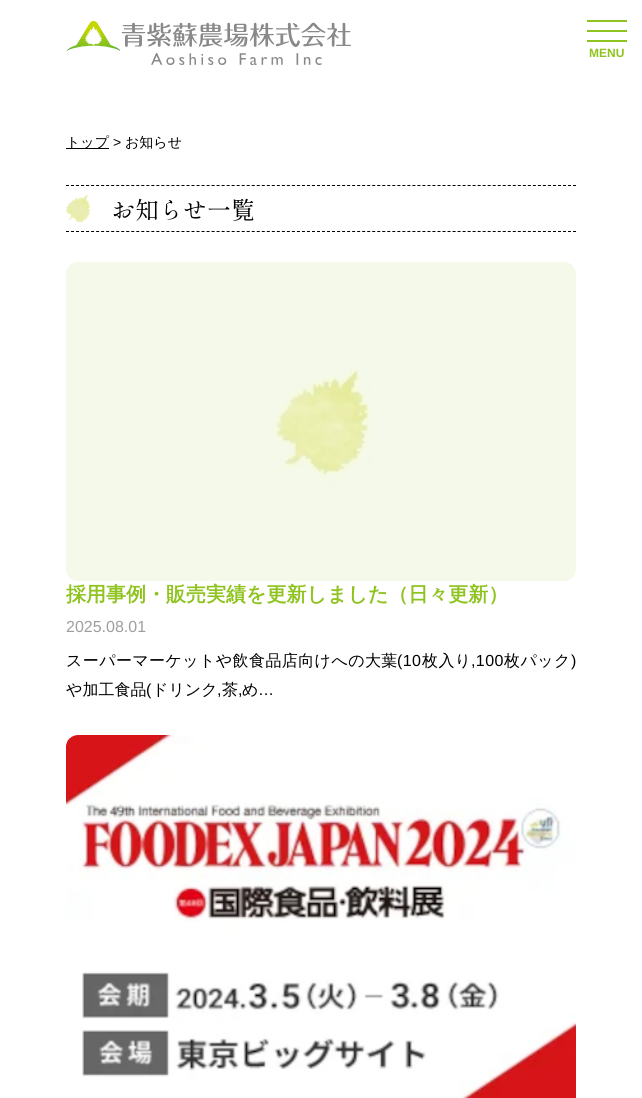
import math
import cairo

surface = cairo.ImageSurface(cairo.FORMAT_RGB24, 642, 1098)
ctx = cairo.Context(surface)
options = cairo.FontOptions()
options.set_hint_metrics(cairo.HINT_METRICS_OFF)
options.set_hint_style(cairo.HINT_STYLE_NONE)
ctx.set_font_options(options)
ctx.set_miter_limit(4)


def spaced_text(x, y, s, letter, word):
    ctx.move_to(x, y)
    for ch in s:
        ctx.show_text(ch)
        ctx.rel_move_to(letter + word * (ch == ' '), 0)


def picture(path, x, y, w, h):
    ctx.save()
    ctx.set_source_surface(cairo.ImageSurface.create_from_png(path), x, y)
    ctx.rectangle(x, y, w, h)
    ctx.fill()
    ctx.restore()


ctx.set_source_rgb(1, 1, 1)
ctx.paint()
picture("img1.png", 66, 21, 285, 44)
ctx.set_source_rgb(0.561, 0.765, 0.122)
ctx.rectangle(587, 20, 40, 2)
ctx.fill()
ctx.rectangle(587, 30, 40, 2)
ctx.fill()
ctx.rectangle(587, 40, 40, 2)
ctx.fill()
ctx.select_font_face("Liberation Sans", cairo.FONT_SLANT_NORMAL, cairo.FONT_WEIGHT_BOLD)
ctx.set_font_size(12)
ctx.move_to(589, 57)
ctx.show_text("MENU")
ctx.set_source_rgb(0, 0, 0)
ctx.rectangle(66, 148, 43, 1)
ctx.fill()
ctx.select_font_face("WenQuanYi Zen Hei Medium")
ctx.set_font_size(14)
ctx.move_to(66, 147)
ctx.show_text("トップ")
ctx.select_font_face("Liberation Sans")
ctx.move_to(113, 147)
ctx.show_text(">")
ctx.select_font_face("WenQuanYi Zen Hei Medium")
ctx.move_to(125, 147)
ctx.show_text("お知らせ")
ctx.new_path()
ctx.move_to(66, 185.5)
ctx.line_to(576, 185.5)
ctx.set_line_width(1)
ctx.set_dash([3, 2.02])
ctx.stroke()
ctx.new_path()
ctx.move_to(66, 231.5)
ctx.line_to(576, 231.5)
ctx.stroke()
picture("img2.png", 66, 195, 24, 27)
ctx.select_font_face("Shippori Mincho B1")
ctx.set_font_size(24)
ctx.move_to(111, 219)
ctx.show_text("お知らせ一覧")
picture("img3.png", 66, 262, 510, 319)
ctx.select_font_face("WenQuanYi Zen Hei", cairo.FONT_SLANT_NORMAL, cairo.FONT_WEIGHT_BOLD)
ctx.set_font_size(20)
ctx.set_source_rgb(0.561, 0.765, 0.122)
ctx.move_to(66, 601)
ctx.show_text("採用事例・販売実績を更新しました（日々更新）")
ctx.select_font_face("Liberation Sans")
ctx.set_font_size(16)
ctx.set_source_rgb(0.62, 0.62, 0.624)
ctx.move_to(66, 632)
ctx.show_text("2025.08.01")
ctx.select_font_face("WenQuanYi Zen Hei Medium")
ctx.set_source_rgb(0, 0, 0)
spaced_text(66, 666, "スーパーマーケットや飲食品店向けへの大葉", 0.4, 0)
ctx.select_font_face("Liberation Sans")
spaced_text(397, 666, "(10", 0.4, 0)
ctx.select_font_face("WenQuanYi Zen Hei Medium")
spaced_text(422, 666, "枚入り", 0.4, 0)
ctx.select_font_face("Liberation Sans")
spaced_text(471, 666, ",100", 0.4, 0)
ctx.select_font_face("WenQuanYi Zen Hei Medium")
spaced_text(504, 666, "枚パック", 0.4, 0)
ctx.select_font_face("Liberation Sans")
spaced_text(571, 666, ")", 0.4, 0)
ctx.select_font_face("WenQuanYi Zen Hei Medium")
ctx.move_to(66, 695)
ctx.show_text("や加工食品")
ctx.select_font_face("Liberation Sans")
ctx.move_to(146, 695)
ctx.show_text("(")
ctx.select_font_face("WenQuanYi Zen Hei Medium")
ctx.move_to(152, 695)
ctx.show_text("ドリンク")
ctx.select_font_face("Liberation Sans")
ctx.move_to(217, 695)
ctx.show_text(",")
ctx.select_font_face("WenQuanYi Zen Hei Medium")
ctx.move_to(222, 695)
ctx.show_text("茶")
ctx.select_font_face("Liberation Sans")
ctx.move_to(238, 695)
ctx.show_text(",")
ctx.select_font_face("WenQuanYi Zen Hei Medium")
ctx.move_to(242, 695)
ctx.show_text("め")
ctx.select_font_face("Liberation Sans")
ctx.move_to(258, 695)
ctx.show_text("…")
picture("img4.png", 66, 735, 510, 363)
surface.write_to_png("page.png")
